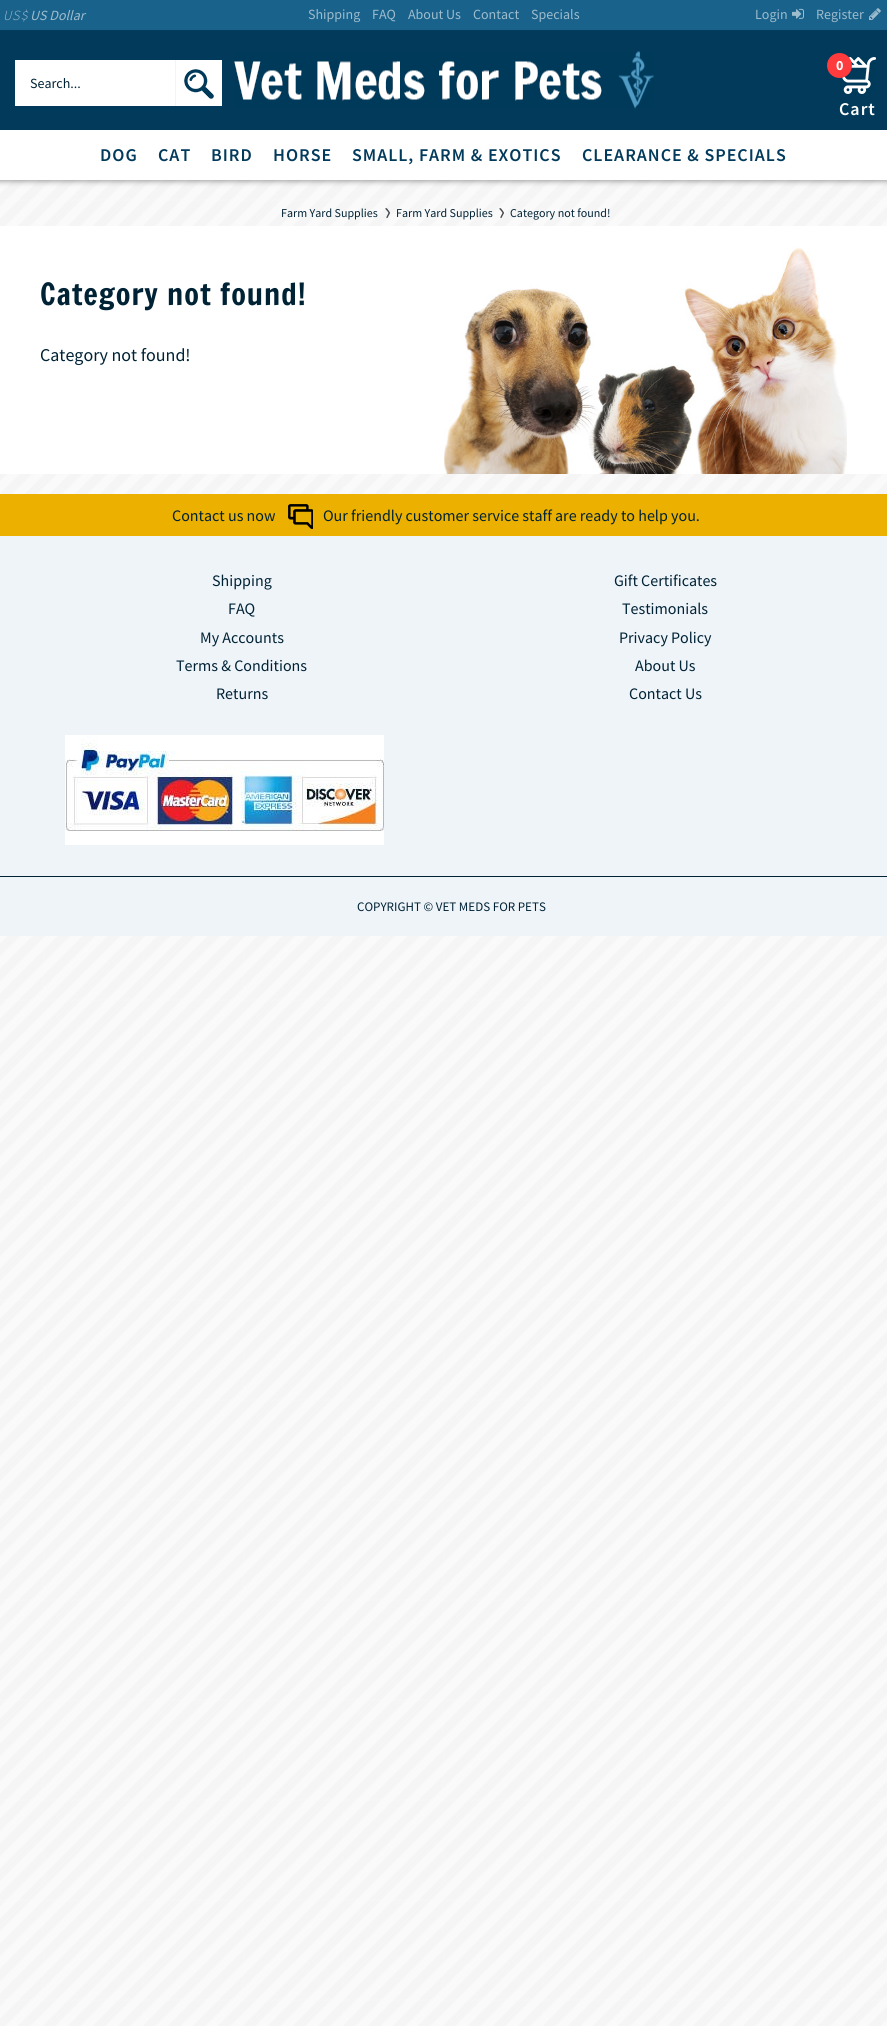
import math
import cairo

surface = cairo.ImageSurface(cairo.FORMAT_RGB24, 887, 2026)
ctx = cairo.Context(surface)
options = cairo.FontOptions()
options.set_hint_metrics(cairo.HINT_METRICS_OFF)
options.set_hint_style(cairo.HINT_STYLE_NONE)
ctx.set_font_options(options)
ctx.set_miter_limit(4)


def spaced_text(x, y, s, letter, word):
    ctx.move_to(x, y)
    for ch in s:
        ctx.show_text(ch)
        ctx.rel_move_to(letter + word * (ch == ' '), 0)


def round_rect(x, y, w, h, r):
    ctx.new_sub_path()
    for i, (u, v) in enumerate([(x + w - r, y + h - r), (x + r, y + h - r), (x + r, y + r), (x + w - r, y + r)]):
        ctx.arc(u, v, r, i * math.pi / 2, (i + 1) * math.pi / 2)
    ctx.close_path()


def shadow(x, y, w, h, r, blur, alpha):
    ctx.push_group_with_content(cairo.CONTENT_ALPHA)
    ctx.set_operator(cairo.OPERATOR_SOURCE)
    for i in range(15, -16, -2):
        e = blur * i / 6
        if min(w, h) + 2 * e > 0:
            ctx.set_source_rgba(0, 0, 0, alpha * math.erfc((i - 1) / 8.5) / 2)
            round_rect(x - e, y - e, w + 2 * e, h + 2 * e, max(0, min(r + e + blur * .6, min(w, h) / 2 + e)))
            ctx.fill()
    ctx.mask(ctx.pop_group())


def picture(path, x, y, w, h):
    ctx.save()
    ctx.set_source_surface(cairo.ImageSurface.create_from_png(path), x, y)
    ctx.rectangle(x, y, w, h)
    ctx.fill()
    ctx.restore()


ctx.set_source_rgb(1, 1, 1)
ctx.paint()
picture("img1.png", 0, 180, 887, 1846)
ctx.set_source_rgb(0, 0, 0)
shadow(-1, -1, 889, 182, 0, 3, 0.4)
ctx.set_source_rgb(0.008, 0.227, 0.357)
ctx.rectangle(0, 30, 887, 100)
ctx.fill()
ctx.set_source_rgb(0.098, 0.384, 0.545)
ctx.rectangle(0, 0, 887, 30)
ctx.fill()
ctx.select_font_face("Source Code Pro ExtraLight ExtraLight", cairo.FONT_SLANT_ITALIC)
ctx.set_font_size(14)
ctx.set_source_rgb(0.616, 0.737, 0.804)
ctx.move_to(3, 20)
ctx.show_text("US$")
ctx.select_font_face("Source Sans Pro", cairo.FONT_SLANT_ITALIC)
ctx.move_to(30, 20)
ctx.show_text("US Dollar")
ctx.select_font_face("Source Sans Pro")
ctx.move_to(308, 19)
ctx.show_text("Shipping")
ctx.move_to(372, 19)
ctx.show_text("FAQ")
ctx.move_to(408, 19)
ctx.show_text("About Us")
ctx.move_to(473, 19)
ctx.show_text("Contact")
ctx.move_to(531, 19)
ctx.show_text("Specials")
ctx.move_to(755, 19)
ctx.show_text("Login")
picture("img2.png", 792, 8, 12, 11)
ctx.move_to(816, 19)
ctx.show_text("Register")
picture("img3.png", 869, 8, 12, 12)
ctx.set_source_rgb(1, 1, 1)
ctx.rectangle(15, 60, 207, 46)
ctx.fill()
ctx.set_source_rgb(0, 0.133, 0.208)
ctx.move_to(30, 88)
ctx.show_text("Search...")
ctx.set_source_rgb(0.957, 0.957, 0.957)
ctx.rectangle(175, 60, 1, 46)
ctx.fill()
picture("img4.png", 184, 69, 30, 30)
picture("img5.png", 234, 51, 420, 58)
picture("img6.png", 840, 57, 36, 37)
ctx.set_source_rgb(1, 0.231, 0.239)
ctx.arc(839.5, 65.5, 12.5, 0, 2 * math.pi)
ctx.fill()
ctx.select_font_face("Source Sans Pro", cairo.FONT_SLANT_NORMAL, cairo.FONT_WEIGHT_BOLD)
ctx.set_source_rgb(1, 1, 1)
ctx.move_to(836, 70)
ctx.show_text("0")
ctx.select_font_face("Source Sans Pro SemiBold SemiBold")
ctx.set_font_size(18)
spaced_text(839, 115, "Cart", 1, 0)
ctx.rectangle(0, 130, 887, 50)
ctx.fill()
ctx.set_source_rgb(0.008, 0.227, 0.357)
spaced_text(100, 161, "DOG", 1, 0)
spaced_text(158, 161, "CAT", 1, 0)
spaced_text(211, 161, "BIRD", 1, 0)
spaced_text(273, 161, "HORSE", 1, 0)
spaced_text(352, 161, "SMALL, FARM & EXOTICS", 1, 0)
spaced_text(582, 161, "CLEARANCE & SPECIALS", 1, 0)
ctx.select_font_face("Source Sans Pro")
ctx.set_font_size(12)
ctx.set_source_rgb(0, 0.133, 0.208)
ctx.move_to(281, 217)
ctx.show_text("Farm Yard Supplies")
ctx.select_font_face("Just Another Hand")
ctx.set_font_size(24)
ctx.set_source_rgb(0.267, 0.271, 0.278)
ctx.move_to(385, 222)
ctx.show_text(">")
ctx.select_font_face("Source Sans Pro")
ctx.set_font_size(12)
ctx.set_source_rgb(0, 0.133, 0.208)
ctx.move_to(396, 217)
ctx.show_text("Farm Yard Supplies")
ctx.select_font_face("Just Another Hand")
ctx.set_font_size(24)
ctx.set_source_rgb(0.267, 0.271, 0.278)
ctx.move_to(499, 222)
ctx.show_text(">")
ctx.select_font_face("Source Sans Pro")
ctx.set_font_size(12)
ctx.set_source_rgb(0, 0.133, 0.208)
ctx.move_to(510, 217)
ctx.show_text("Category not found!")
ctx.set_source_rgb(1, 1, 1)
ctx.rectangle(0, 226, 887, 248)
ctx.fill()
ctx.select_font_face("Francois One")
ctx.set_font_size(30)
ctx.set_source_rgb(0, 0.133, 0.208)
spaced_text(40, 305, "Category not found!", 1, 0)
picture("img7.png", 444, 247, 403, 227)
ctx.select_font_face("Source Sans Pro")
ctx.set_font_size(18)
ctx.move_to(40, 361)
ctx.show_text("Category not found!")
ctx.set_source_rgb(0.937, 0.957, 0.973)
ctx.rectangle(0, 536, 887, 400)
ctx.fill()
ctx.set_source_rgb(0.918, 0.69, 0)
ctx.rectangle(0, 494, 887, 42)
ctx.fill()
ctx.set_font_size(16)
ctx.set_source_rgb(0, 0.133, 0.208)
ctx.move_to(172, 521)
ctx.show_text("Contact us now")
picture("img8.png", 288, 504, 25, 25)
ctx.move_to(323, 521)
ctx.show_text("Our friendly customer service staff are ready to help you.")
ctx.move_to(212, 586)
ctx.show_text("Shipping")
ctx.move_to(228, 614)
ctx.show_text("FAQ")
ctx.move_to(200, 643)
ctx.show_text("My Accounts")
ctx.move_to(176, 671)
ctx.show_text("Terms & Conditions")
ctx.move_to(216, 699)
ctx.show_text("Returns")
ctx.move_to(614, 586)
ctx.show_text("Gift Certificates")
ctx.move_to(622, 614)
ctx.show_text("Testimonials")
ctx.move_to(619, 643)
ctx.show_text("Privacy Policy")
ctx.move_to(635, 671)
ctx.show_text("About Us")
ctx.move_to(629, 699)
ctx.show_text("Contact Us")
picture("img9.png", 65, 735, 319, 110)
ctx.rectangle(0, 876, 887, 1)
ctx.fill()
ctx.set_font_size(13)
ctx.move_to(357, 911)
ctx.show_text("COPYRIGHT © VET MEDS FOR PETS")
surface.write_to_png("page.png")
